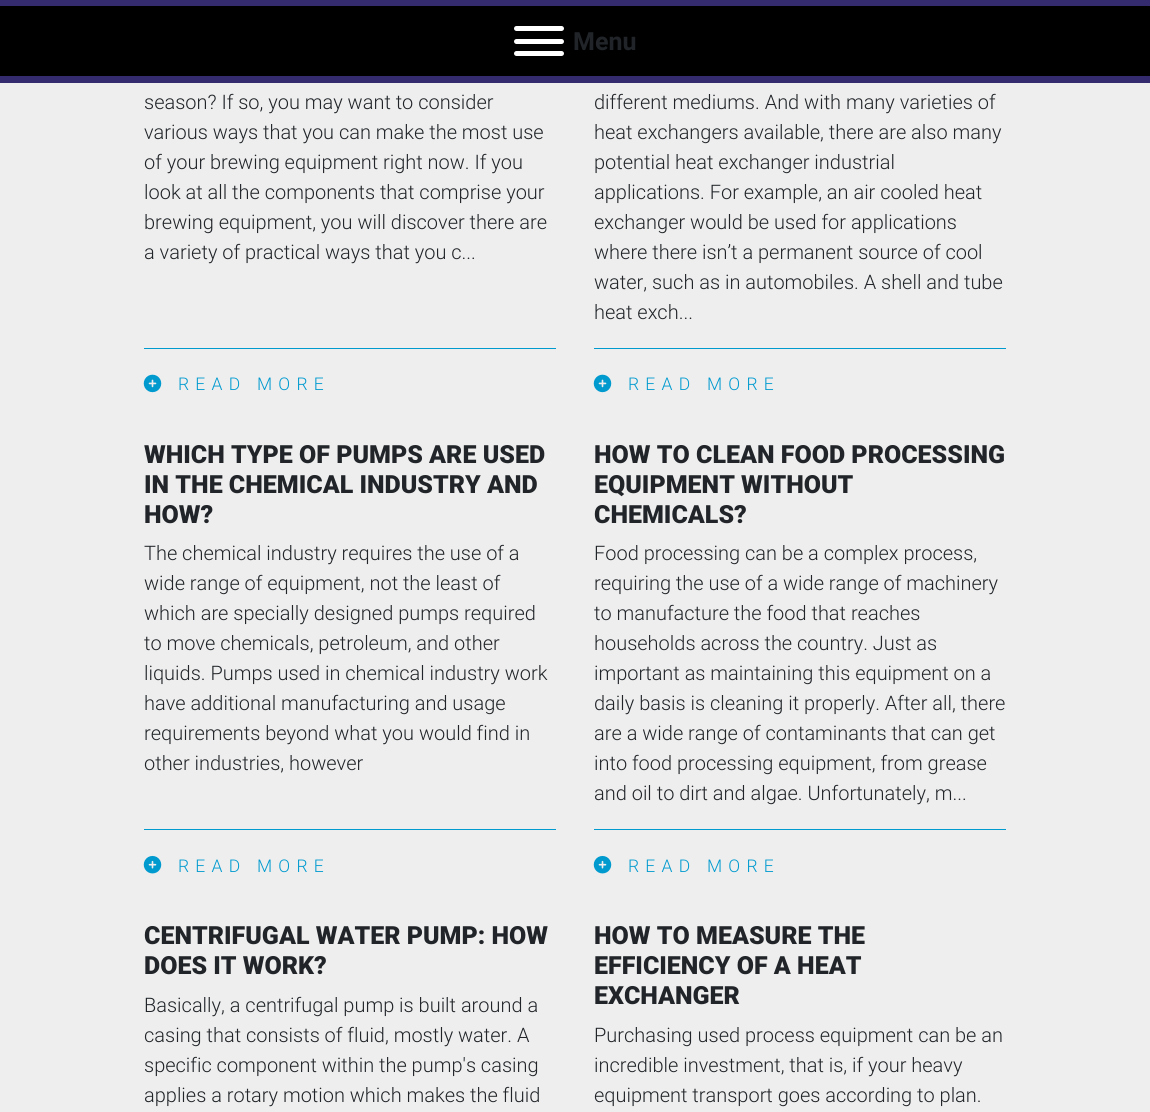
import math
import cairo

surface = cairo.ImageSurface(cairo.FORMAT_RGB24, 1150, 1112)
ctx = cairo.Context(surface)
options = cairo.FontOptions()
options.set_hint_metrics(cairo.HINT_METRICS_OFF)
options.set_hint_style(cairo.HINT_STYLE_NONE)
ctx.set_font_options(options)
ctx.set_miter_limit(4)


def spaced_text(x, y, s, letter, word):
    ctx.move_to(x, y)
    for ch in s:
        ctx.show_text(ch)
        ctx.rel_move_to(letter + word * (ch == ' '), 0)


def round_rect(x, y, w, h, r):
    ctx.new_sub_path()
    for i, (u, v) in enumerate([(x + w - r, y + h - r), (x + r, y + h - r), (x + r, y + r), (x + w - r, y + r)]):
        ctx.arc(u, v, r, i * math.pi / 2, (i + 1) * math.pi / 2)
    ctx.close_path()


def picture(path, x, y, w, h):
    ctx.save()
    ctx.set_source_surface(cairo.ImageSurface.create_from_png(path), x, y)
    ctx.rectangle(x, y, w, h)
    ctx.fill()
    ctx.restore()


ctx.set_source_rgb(0.933, 0.933, 0.933)
ctx.paint()
ctx.set_source_rgb(0, 0, 0)
ctx.rectangle(0, 6, 1150, 70)
ctx.fill()
ctx.set_source_rgb(0.204, 0.169, 0.431)
ctx.rectangle(0, 0, 1150, 6)
ctx.fill()
ctx.rectangle(0, 76, 1150, 7)
ctx.fill()
ctx.set_source_rgb(1, 1, 1)
round_rect(514, 39, 50, 5, 2.5)
ctx.fill()
round_rect(514, 26, 50, 5, 2.5)
ctx.fill()
round_rect(514, 51, 50, 5, 2.5)
ctx.fill()
ctx.select_font_face("Roboto", cairo.FONT_SLANT_NORMAL, cairo.FONT_WEIGHT_BOLD)
ctx.set_font_size(25)
ctx.set_source_rgb(0.129, 0.145, 0.161)
ctx.move_to(573, 50)
ctx.show_text("Menu")
ctx.select_font_face("Roboto Light")
ctx.set_font_size(20)
ctx.move_to(144, 109)
ctx.show_text("season? If so, you may want to consider")
ctx.move_to(144, 139)
ctx.show_text("various ways that you can make the most use")
ctx.move_to(144, 169)
ctx.show_text("of your brewing equipment right now. If you")
ctx.move_to(144, 199)
ctx.show_text("look at all the components that comprise your")
ctx.move_to(144, 229)
ctx.show_text("brewing equipment, you will discover there are")
ctx.move_to(144, 259)
ctx.show_text("a variety of practical ways that you c...")
ctx.set_source_rgb(0, 0.604, 0.812)
ctx.rectangle(144, 348, 412, 1)
ctx.fill()
picture("img1.png", 143, 374, 19, 19)
ctx.set_font_size(17.5)
spaced_text(178, 390, "READ MORE", 6.25, 0)
ctx.set_font_size(20)
ctx.set_source_rgb(0.129, 0.145, 0.161)
ctx.move_to(594, 109)
ctx.show_text("different mediums. And with many varieties of")
ctx.move_to(594, 139)
ctx.show_text("heat exchangers available, there are also many")
ctx.move_to(594, 169)
ctx.show_text("potential heat exchanger industrial")
ctx.move_to(594, 199)
ctx.show_text("applications. For example, an air cooled heat")
ctx.move_to(594, 229)
ctx.show_text("exchanger would be used for applications")
ctx.move_to(594, 259)
ctx.show_text("where there isn’t a permanent source of cool")
ctx.move_to(594, 289)
ctx.show_text("water, such as in automobiles. A shell and tube")
ctx.move_to(594, 319)
ctx.show_text("heat exch...")
ctx.set_source_rgb(0, 0.604, 0.812)
ctx.rectangle(594, 348, 412, 1)
ctx.fill()
picture("img1.png", 593, 374, 19, 19)
ctx.set_font_size(17.5)
spaced_text(628, 390, "READ MORE", 6.25, 0)
ctx.select_font_face("Roboto Black")
ctx.set_font_size(25)
ctx.set_source_rgb(0.129, 0.145, 0.161)
ctx.move_to(144, 463)
ctx.show_text("WHICH TYPE OF PUMPS ARE USED")
ctx.move_to(144, 493)
ctx.show_text("IN THE CHEMICAL INDUSTRY AND")
ctx.move_to(144, 523)
ctx.show_text("HOW?")
ctx.select_font_face("Roboto Light")
ctx.set_font_size(20)
ctx.move_to(144, 560)
ctx.show_text("The chemical industry requires the use of a")
ctx.move_to(144, 590)
ctx.show_text("wide range of equipment, not the least of")
ctx.move_to(144, 620)
ctx.show_text("which are specially designed pumps required")
ctx.move_to(144, 650)
ctx.show_text("to move chemicals, petroleum, and other")
ctx.move_to(144, 680)
ctx.show_text("liquids. Pumps used in chemical industry work")
ctx.move_to(144, 710)
ctx.show_text("have additional manufacturing and usage")
ctx.move_to(144, 740)
ctx.show_text("requirements beyond what you would find in")
ctx.move_to(144, 770)
ctx.show_text("other industries, however")
ctx.set_source_rgb(0, 0.604, 0.812)
ctx.rectangle(144, 829, 412, 1)
ctx.fill()
picture("img2.png", 143, 855, 19, 19)
ctx.set_font_size(17.5)
spaced_text(178, 872, "READ MORE", 6.25, 0)
ctx.select_font_face("Roboto Black")
ctx.set_font_size(25)
ctx.set_source_rgb(0.129, 0.145, 0.161)
ctx.move_to(594, 463)
ctx.show_text("HOW TO CLEAN FOOD PROCESSING")
ctx.move_to(594, 493)
ctx.show_text("EQUIPMENT WITHOUT")
ctx.move_to(594, 523)
ctx.show_text("CHEMICALS?")
ctx.select_font_face("Roboto Light")
ctx.set_font_size(20)
ctx.move_to(594, 560)
ctx.show_text("Food processing can be a complex process,")
ctx.move_to(594, 590)
ctx.show_text("requiring the use of a wide range of machinery")
ctx.move_to(594, 620)
ctx.show_text("to manufacture the food that reaches")
ctx.move_to(594, 650)
ctx.show_text("households across the country. Just as")
ctx.move_to(594, 680)
ctx.show_text("important as maintaining this equipment on a")
ctx.move_to(594, 710)
ctx.show_text("daily basis is cleaning it properly. After all, there")
ctx.move_to(594, 740)
ctx.show_text("are a wide range of contaminants that can get")
ctx.move_to(594, 770)
ctx.show_text("into food processing equipment, from grease")
ctx.move_to(594, 800)
ctx.show_text("and oil to dirt and algae. Unfortunately, m...")
ctx.set_source_rgb(0, 0.604, 0.812)
ctx.rectangle(594, 829, 412, 1)
ctx.fill()
picture("img2.png", 593, 855, 19, 19)
ctx.set_font_size(17.5)
spaced_text(628, 872, "READ MORE", 6.25, 0)
ctx.select_font_face("Roboto Black")
ctx.set_font_size(25)
ctx.set_source_rgb(0.129, 0.145, 0.161)
ctx.move_to(144, 944)
ctx.show_text("CENTRIFUGAL WATER PUMP: HOW")
ctx.move_to(144, 974)
ctx.show_text("DOES IT WORK?")
ctx.select_font_face("Roboto Light")
ctx.set_font_size(20)
ctx.move_to(144, 1012)
ctx.show_text("Basically, a centrifugal pump is built around a")
ctx.move_to(144, 1042)
ctx.show_text("casing that consists of fluid, mostly water. A")
ctx.move_to(144, 1072)
ctx.show_text("specific component within the pump's casing")
ctx.move_to(144, 1102)
ctx.show_text("applies a rotary motion which makes the fluid")
ctx.select_font_face("Roboto Black")
ctx.set_font_size(25)
ctx.move_to(594, 944)
ctx.show_text("HOW TO MEASURE THE")
ctx.move_to(594, 974)
ctx.show_text("EFFICIENCY OF A HEAT")
ctx.move_to(594, 1004)
ctx.show_text("EXCHANGER")
ctx.select_font_face("Roboto Light")
ctx.set_font_size(20)
ctx.move_to(594, 1042)
ctx.show_text("Purchasing used process equipment can be an")
ctx.move_to(594, 1072)
ctx.show_text("incredible investment, that is, if your heavy")
ctx.move_to(594, 1102)
ctx.show_text("equipment transport goes according to plan.")
surface.write_to_png("page.png")
